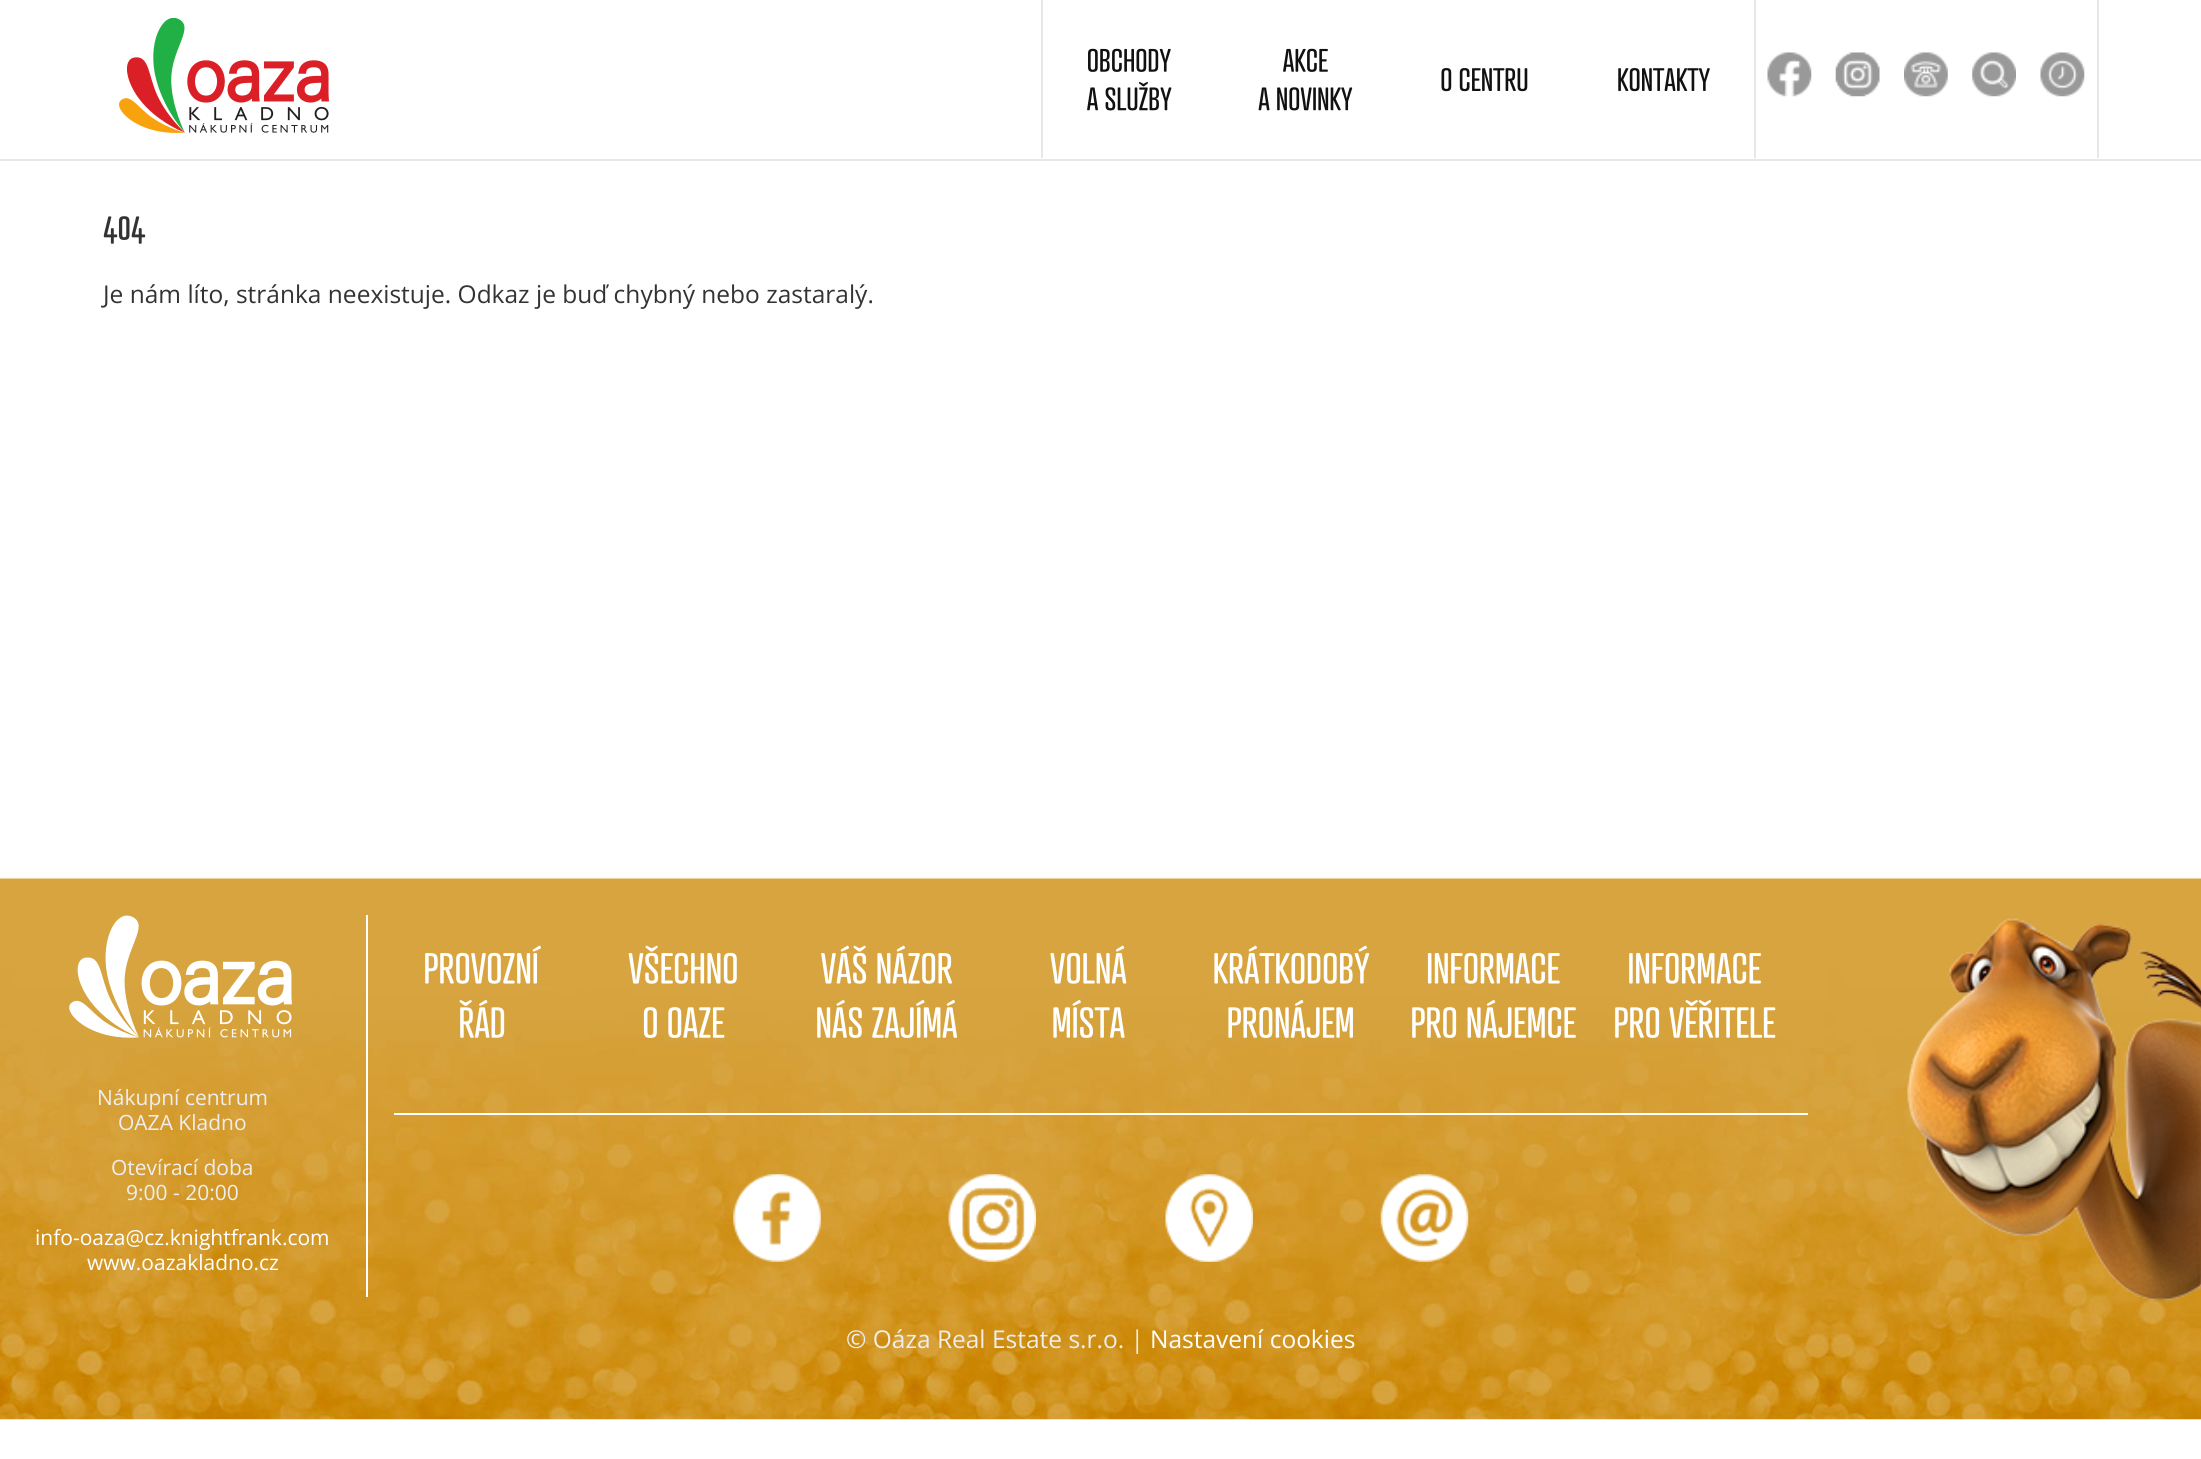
import math
import cairo

surface = cairo.ImageSurface(cairo.FORMAT_RGB24, 2201, 1459)
ctx = cairo.Context(surface)
options = cairo.FontOptions()
options.set_hint_metrics(cairo.HINT_METRICS_OFF)
options.set_hint_style(cairo.HINT_STYLE_NONE)
ctx.set_font_options(options)
ctx.set_miter_limit(4)


def picture(path, x, y, w, h):
    ctx.save()
    ctx.set_source_surface(cairo.ImageSurface.create_from_png(path), x, y)
    ctx.rectangle(x, y, w, h)
    ctx.fill()
    ctx.restore()


ctx.set_source_rgb(1, 1, 1)
ctx.paint()
ctx.set_source_rgb(0.906, 0.906, 0.906)
ctx.rectangle(0, 159, 2201, 2)
ctx.fill()
picture("img1.png", 119, 18, 210, 115)
ctx.rectangle(2097, 0, 2, 158)
ctx.fill()
ctx.rectangle(1041, 0, 2, 158)
ctx.fill()
picture("img2.png", 1088, 48, 83, 24)
picture("img3.png", 1087, 82, 85, 29)
picture("img4.png", 1283, 48, 45, 24)
picture("img5.png", 1258, 87, 95, 24)
picture("img6.png", 1441, 68, 87, 24)
ctx.rectangle(1754, 0, 2, 158)
ctx.fill()
picture("img7.png", 1618, 68, 92, 24)
picture("img8.png", 1767, 52, 45, 45)
picture("img9.png", 1835, 52, 45, 45)
picture("img10.png", 1904, 52, 44, 45)
picture("img11.png", 1972, 52, 44, 45)
picture("img12.png", 2040, 52, 45, 45)
picture("img13.png", 103, 216, 43, 28)
ctx.select_font_face("Open Sans")
ctx.set_font_size(24.5)
ctx.set_source_rgb(0.2, 0.2, 0.2)
ctx.move_to(103, 303)
ctx.show_text("Je nám líto, stránka neexistuje. Odkaz je buď chybný nebo zastaralý.")
picture("img14.png", 0, 878, 2201, 542)
ctx.set_source_rgb(1, 1, 1)
ctx.rectangle(366, 915, 2, 382)
ctx.fill()
picture("img15.png", 69, 915, 223, 123)
ctx.set_font_size(21)
ctx.set_source_rgb(0.933, 0.933, 0.933)
ctx.move_to(97, 1105)
ctx.show_text("Nákupní centrum")
ctx.move_to(118, 1130)
ctx.show_text("OAZA Kladno")
ctx.move_to(111, 1175)
ctx.show_text("Otevírací doba")
ctx.move_to(126, 1200)
ctx.show_text("9:00 - 20:00")
ctx.set_source_rgb(1, 1, 1)
ctx.move_to(35, 1245)
ctx.show_text("info-oaza@cz.knightfrank.com")
ctx.move_to(87, 1270)
ctx.show_text("www.oazakladno.cz")
picture("img16.png", 1907, 918, 294, 383)
ctx.rectangle(394, 1113, 1414, 2)
ctx.fill()
picture("img17.png", 425, 945, 116, 39)
picture("img18.png", 459, 999, 46, 39)
picture("img19.png", 628, 945, 109, 39)
picture("img20.png", 643, 1007, 82, 31)
picture("img21.png", 821, 945, 132, 39)
picture("img22.png", 817, 999, 140, 39)
picture("img23.png", 1050, 945, 77, 39)
picture("img24.png", 1053, 999, 72, 39)
picture("img25.png", 1214, 945, 156, 39)
picture("img26.png", 1228, 999, 125, 39)
picture("img27.png", 1427, 952, 133, 32)
picture("img28.png", 1412, 999, 164, 39)
picture("img29.png", 1629, 952, 132, 32)
picture("img30.png", 1615, 1000, 161, 38)
picture("img31.png", 733, 1174, 88, 88)
picture("img32.png", 948, 1174, 88, 88)
picture("img33.png", 1165, 1174, 88, 88)
picture("img34.png", 1380, 1174, 89, 88)
ctx.set_font_size(24.5)
ctx.set_source_rgb(0.933, 0.933, 0.933)
ctx.move_to(846, 1348)
ctx.show_text("© Oáza Real Estate s.r.o. |")
ctx.set_source_rgb(1, 1, 1)
ctx.move_to(1150, 1348)
ctx.show_text("Nastavení cookies")
surface.write_to_png("page.png")
